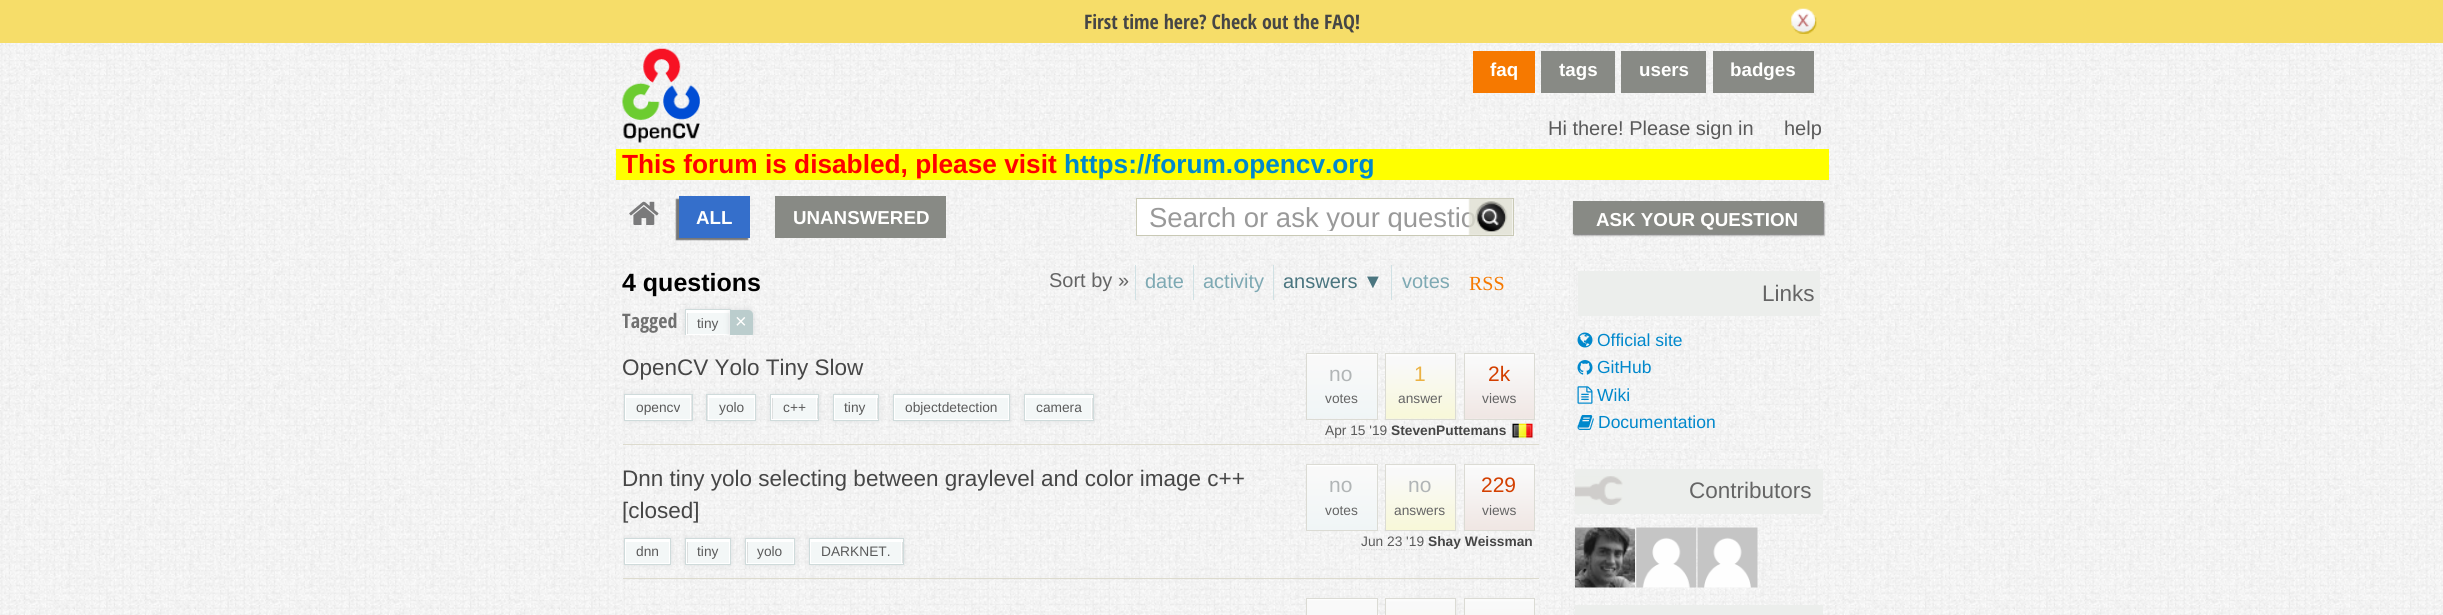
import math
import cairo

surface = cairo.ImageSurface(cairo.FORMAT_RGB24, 2443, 615)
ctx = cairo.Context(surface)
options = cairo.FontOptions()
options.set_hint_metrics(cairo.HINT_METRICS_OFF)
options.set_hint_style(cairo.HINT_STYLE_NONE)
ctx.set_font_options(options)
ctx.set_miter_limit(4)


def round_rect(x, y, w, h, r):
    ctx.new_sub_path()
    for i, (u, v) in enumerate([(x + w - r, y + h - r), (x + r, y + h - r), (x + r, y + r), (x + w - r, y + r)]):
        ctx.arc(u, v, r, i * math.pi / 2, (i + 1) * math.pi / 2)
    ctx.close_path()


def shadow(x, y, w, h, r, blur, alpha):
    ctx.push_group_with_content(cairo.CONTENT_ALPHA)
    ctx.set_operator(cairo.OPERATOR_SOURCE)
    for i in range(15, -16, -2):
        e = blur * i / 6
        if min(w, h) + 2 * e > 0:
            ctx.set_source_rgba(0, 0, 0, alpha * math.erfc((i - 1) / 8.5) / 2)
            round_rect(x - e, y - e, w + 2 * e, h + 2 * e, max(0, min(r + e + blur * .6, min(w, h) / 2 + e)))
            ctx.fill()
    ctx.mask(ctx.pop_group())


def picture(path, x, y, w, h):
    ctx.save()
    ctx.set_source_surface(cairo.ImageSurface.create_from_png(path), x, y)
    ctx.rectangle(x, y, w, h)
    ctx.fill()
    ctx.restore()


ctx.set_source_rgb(1, 1, 1)
ctx.paint()
picture("img1.png", 0, 180, 2443, 435)
ctx.set_source_rgb(0.961, 0.867, 0.412)
ctx.rectangle(0, 0, 2443, 43)
ctx.fill()
ctx.select_font_face("Open Sans Condensed", cairo.FONT_SLANT_NORMAL, cairo.FONT_WEIGHT_BOLD)
ctx.set_font_size(20)
ctx.set_source_rgb(0.275, 0.275, 0.275)
ctx.move_to(1084, 29)
ctx.show_text("First time here? Check out the FAQ!")
picture("img2.png", 1791, 8, 26, 26)
picture("img3.png", 0, 43, 2443, 137)
picture("img4.png", 622, 48, 78, 95)
ctx.set_source_rgb(0.961, 0.475, 0)
ctx.rectangle(1473, 51, 62, 42)
ctx.fill()
ctx.select_font_face("Liberation Sans", cairo.FONT_SLANT_NORMAL, cairo.FONT_WEIGHT_BOLD)
ctx.set_font_size(18.75)
ctx.set_source_rgb(1, 1, 0.996)
ctx.move_to(1490, 76)
ctx.show_text("faq")
ctx.set_source_rgb(0.533, 0.541, 0.522)
ctx.rectangle(1541, 51, 74, 42)
ctx.fill()
ctx.set_source_rgb(1, 1, 0.996)
ctx.move_to(1559, 76)
ctx.show_text("tags")
ctx.set_source_rgb(0.533, 0.541, 0.522)
ctx.rectangle(1621, 51, 85, 42)
ctx.fill()
ctx.set_source_rgb(1, 1, 0.996)
ctx.move_to(1639, 76)
ctx.show_text("users")
ctx.set_source_rgb(0.533, 0.541, 0.522)
ctx.rectangle(1713, 51, 101, 42)
ctx.fill()
ctx.set_source_rgb(1, 1, 0.996)
ctx.move_to(1730, 76)
ctx.show_text("badges")
ctx.select_font_face("Liberation Sans")
ctx.set_font_size(20)
ctx.set_source_rgb(0.353, 0.353, 0.353)
ctx.move_to(1548, 135)
ctx.show_text("Hi there! Please sign in")
ctx.move_to(1784, 135)
ctx.show_text("help")
ctx.set_source_rgb(1, 1, 0)
ctx.rectangle(616, 149, 1213, 31)
ctx.fill()
ctx.select_font_face("Liberation Sans", cairo.FONT_SLANT_NORMAL, cairo.FONT_WEIGHT_BOLD)
ctx.set_font_size(26.25)
ctx.set_source_rgb(1, 0, 0)
ctx.move_to(622, 173)
ctx.show_text("This forum is disabled, please visit")
ctx.set_source_rgb(0, 0.533, 0.8)
ctx.move_to(1064, 173)
ctx.show_text("https://forum.opencv.org")
picture("img5.png", 629, 201, 30, 24)
ctx.set_source_rgb(0.467, 0.467, 0.467)
shadow(676, 199, 72, 41, 0, 0.5, 1)
ctx.set_source_rgb(0.208, 0.435, 0.796)
ctx.rectangle(679, 196, 71, 42)
ctx.fill()
ctx.set_font_size(18.75)
ctx.set_source_rgb(1, 1, 0.996)
ctx.move_to(696, 224)
ctx.show_text("ALL")
ctx.set_source_rgb(0.533, 0.541, 0.522)
ctx.rectangle(775, 196, 171, 42)
ctx.fill()
ctx.set_source_rgb(1, 1, 0.996)
ctx.move_to(793, 224)
ctx.show_text("UNANSWERED")
ctx.set_source_rgb(1, 1, 1)
ctx.rectangle(1136.5, 198.5, 377, 37)
ctx.fill_preserve()
ctx.set_source_rgb(0.788, 0.788, 0.71)
ctx.set_line_width(1)
ctx.stroke()
ctx.save()
ctx.rectangle(1150, 203, 344, 28)
ctx.clip()
ctx.select_font_face("Liberation Sans")
ctx.set_font_size(27.5)
ctx.set_source_rgb(0.6, 0.6, 0.6)
ctx.move_to(1149, 227)
ctx.show_text("Search or ask your questio")
ctx.restore()
picture("img6.png", 1468, 198, 45, 37)
ctx.set_source_rgb(0.388, 0.388, 0.388)
shadow(1574, 203, 250, 32, 0, 1, 1)
ctx.set_source_rgb(0.533, 0.541, 0.522)
ctx.rectangle(1573, 201, 250, 33)
ctx.fill()
ctx.set_source_rgb(1, 1, 0.996)
ctx.move_to(1596, 226)
ctx.show_text("ASK YOUR QUESTION")
ctx.set_font_size(25)
ctx.set_source_rgb(0, 0, 0)
ctx.move_to(622, 291)
ctx.show_text("4 questions")
ctx.select_font_face("Liberation Sans")
ctx.set_font_size(20)
ctx.set_source_rgb(0.396, 0.396, 0.396)
ctx.move_to(1049, 287)
ctx.show_text("Sort by »")
ctx.set_source_rgb(0.816, 0.882, 0.894)
ctx.rectangle(1135, 265, 1, 35)
ctx.fill()
ctx.set_source_rgb(0.494, 0.663, 0.702)
ctx.move_to(1145, 288)
ctx.show_text("date")
ctx.set_source_rgb(0.816, 0.882, 0.894)
ctx.rectangle(1193, 265, 1, 35)
ctx.fill()
ctx.set_source_rgb(0.494, 0.663, 0.702)
ctx.move_to(1203, 288)
ctx.show_text("activity")
ctx.set_source_rgb(0.816, 0.882, 0.894)
ctx.rectangle(1273, 265, 1, 35)
ctx.fill()
ctx.set_source_rgb(0.29, 0.459, 0.498)
ctx.move_to(1283, 288)
ctx.show_text("answers ▼")
ctx.set_source_rgb(0.816, 0.882, 0.894)
ctx.rectangle(1391, 265, 1, 35)
ctx.fill()
ctx.set_source_rgb(0.494, 0.663, 0.702)
ctx.move_to(1402, 288)
ctx.show_text("votes")
ctx.select_font_face("Liberation Serif")
ctx.set_source_rgb(0.961, 0.475, 0)
ctx.move_to(1469, 290)
ctx.show_text("RSS")
ctx.select_font_face("Open Sans Condensed", cairo.FONT_SLANT_NORMAL, cairo.FONT_WEIGHT_BOLD)
ctx.set_source_rgb(0.439, 0.439, 0.439)
ctx.move_to(622, 328)
ctx.show_text("Tagged")
ctx.set_source_rgb(0.827, 0.839, 0.843)
shadow(686, 310, 44, 25, 0, 3, 1)
ctx.set_source_rgb(0.953, 0.965, 0.965)
ctx.rectangle(688, 313, 41, 21)
ctx.fill()
ctx.set_source_rgb(1, 1, 1)
ctx.rectangle(686, 310, 44, 3)
ctx.fill()
ctx.rectangle(729, 310, 1, 25)
ctx.fill()
ctx.rectangle(686, 334, 44, 1)
ctx.fill()
ctx.rectangle(686, 310, 1, 25)
ctx.fill()
ctx.rectangle(685.5, 309.5, 45, 26)
ctx.set_source_rgb(0.812, 0.859, 0.859)
ctx.stroke()
ctx.select_font_face("Liberation Sans")
ctx.set_font_size(13.75)
ctx.set_source_rgb(0.353, 0.353, 0.353)
ctx.move_to(697, 328)
ctx.show_text("tiny")
ctx.set_source_rgb(0.827, 0.839, 0.843)
shadow(730, 310, 23, 28, 5, 3, 1)
ctx.set_source_rgb(0.733, 0.804, 0.804)
ctx.new_path()
ctx.move_to(730, 310)
ctx.line_to(748, 310)
ctx.curve_to(751, 310, 753, 312, 753, 315)
ctx.line_to(753, 333)
ctx.curve_to(753, 336, 751, 338, 748, 338)
ctx.line_to(730, 338)
ctx.close_path()
ctx.fill()
ctx.set_font_size(20)
ctx.set_source_rgb(1, 1, 0.996)
ctx.move_to(735, 328)
ctx.show_text("×")
picture("img7.png", 622, 335, 913, 280)
picture("img8.png", 1535, 335, 4, 108)
ctx.set_source_rgb(0.867, 0.859, 0.808)
ctx.rectangle(623, 444, 916, 1)
ctx.fill()
ctx.set_font_size(22.5)
ctx.set_source_rgb(0.275, 0.275, 0.275)
ctx.move_to(622, 375)
ctx.show_text("OpenCV Yolo Tiny Slow")
picture("img9.png", 1307, 354, 70, 65)
ctx.rectangle(1306.5, 353.5, 71, 66)
ctx.set_source_rgb(0.859, 0.859, 0.831)
ctx.stroke()
ctx.set_font_size(21)
ctx.set_source_rgb(0.694, 0.71, 0.714)
ctx.move_to(1329, 381)
ctx.show_text("no")
ctx.set_font_size(13.75)
ctx.set_source_rgb(0.396, 0.396, 0.396)
ctx.move_to(1325, 403)
ctx.show_text("votes")
picture("img10.png", 1386, 354, 71, 65)
ctx.rectangle(1385.5, 353.5, 70, 66)
ctx.set_source_rgb(0.859, 0.859, 0.831)
ctx.stroke()
ctx.set_font_size(21)
ctx.set_source_rgb(0.918, 0.698, 0.263)
ctx.move_to(1414, 381)
ctx.show_text("1")
ctx.set_font_size(13.75)
ctx.set_source_rgb(0.396, 0.396, 0.396)
ctx.move_to(1398, 403)
ctx.show_text("answer")
picture("img11.png", 1463, 353, 71, 66)
ctx.rectangle(1464.5, 353.5, 70, 66)
ctx.set_source_rgb(0.859, 0.859, 0.831)
ctx.stroke()
ctx.set_font_size(21)
ctx.set_source_rgb(0.827, 0.247, 0)
ctx.move_to(1488, 381)
ctx.show_text("2k")
ctx.set_font_size(13.75)
ctx.set_source_rgb(0.396, 0.396, 0.396)
ctx.move_to(1482, 403)
ctx.show_text("views")
ctx.rectangle(1511.5, 423.5, 22, 15)
ctx.set_source_rgb(0.933, 0.933, 0.933)
ctx.stroke()
ctx.new_path()
ctx.move_to(1325, 438)
ctx.line_to(1387.5, 438)
ctx.set_source_rgb(0.867, 0.867, 0.867)
ctx.set_line_width(1.2)
ctx.set_dash([1.25, 1.25])
ctx.stroke()
ctx.set_source_rgb(0.353, 0.353, 0.353)
ctx.move_to(1325, 435)
ctx.show_text("Apr 15 '19")
ctx.select_font_face("Liberation Sans", cairo.FONT_SLANT_NORMAL, cairo.FONT_WEIGHT_BOLD)
ctx.set_source_rgb(0.275, 0.275, 0.275)
ctx.move_to(1391, 435)
ctx.show_text("StevenPuttemans")
picture("img12.png", 1512, 423, 21, 15)
ctx.save()
ctx.rectangle(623, 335, 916, 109)
ctx.clip()
ctx.set_source_rgb(0.827, 0.839, 0.843)
shadow(625, 395, 66, 25, 0, 3, 1)
ctx.restore()
ctx.set_source_rgb(0.953, 0.965, 0.965)
ctx.rectangle(626, 398, 64, 21)
ctx.fill()
ctx.set_source_rgb(1, 1, 1)
ctx.rectangle(625, 395, 66, 3)
ctx.fill()
ctx.rectangle(690, 395, 1, 25)
ctx.fill()
ctx.rectangle(625, 419, 66, 1)
ctx.fill()
ctx.rectangle(625, 395, 1, 25)
ctx.fill()
ctx.rectangle(624.5, 394.5, 68, 26)
ctx.set_source_rgb(0.812, 0.859, 0.859)
ctx.set_line_width(1)
ctx.set_dash([])
ctx.stroke()
ctx.select_font_face("Liberation Sans")
ctx.set_source_rgb(0.353, 0.353, 0.353)
ctx.move_to(636, 412)
ctx.show_text("opencv")
ctx.set_source_rgb(0.827, 0.839, 0.843)
shadow(708, 395, 47, 25, 0, 3, 1)
ctx.set_source_rgb(0.953, 0.965, 0.965)
ctx.rectangle(709, 398, 45, 21)
ctx.fill()
ctx.set_source_rgb(1, 1, 1)
ctx.rectangle(708, 395, 47, 3)
ctx.fill()
ctx.rectangle(754, 395, 1, 25)
ctx.fill()
ctx.rectangle(708, 419, 47, 1)
ctx.fill()
ctx.rectangle(708, 395, 1, 25)
ctx.fill()
ctx.rectangle(706.5, 394.5, 49, 26)
ctx.set_source_rgb(0.812, 0.859, 0.859)
ctx.stroke()
ctx.set_source_rgb(0.353, 0.353, 0.353)
ctx.move_to(719, 412)
ctx.show_text("yolo")
ctx.set_source_rgb(0.827, 0.839, 0.843)
shadow(771, 395, 47, 25, 0, 3, 1)
ctx.set_source_rgb(0.953, 0.965, 0.965)
ctx.rectangle(773, 398, 43, 21)
ctx.fill()
ctx.set_source_rgb(1, 1, 1)
ctx.rectangle(771, 395, 47, 3)
ctx.fill()
ctx.rectangle(816, 395, 1, 25)
ctx.fill()
ctx.rectangle(771, 419, 47, 1)
ctx.fill()
ctx.rectangle(771, 395, 1, 25)
ctx.fill()
ctx.rectangle(770.5, 394.5, 48, 26)
ctx.set_source_rgb(0.812, 0.859, 0.859)
ctx.stroke()
ctx.set_source_rgb(0.353, 0.353, 0.353)
ctx.move_to(783, 412)
ctx.show_text("c++")
ctx.set_source_rgb(0.827, 0.839, 0.843)
shadow(834, 395, 44, 25, 0, 3, 1)
ctx.set_source_rgb(0.953, 0.965, 0.965)
ctx.rectangle(835, 398, 41, 21)
ctx.fill()
ctx.set_source_rgb(1, 1, 1)
ctx.rectangle(834, 395, 44, 3)
ctx.fill()
ctx.rectangle(876, 395, 1, 25)
ctx.fill()
ctx.rectangle(834, 419, 44, 1)
ctx.fill()
ctx.rectangle(834, 395, 1, 25)
ctx.fill()
ctx.rectangle(833.5, 394.5, 45, 26)
ctx.set_source_rgb(0.812, 0.859, 0.859)
ctx.stroke()
ctx.set_source_rgb(0.353, 0.353, 0.353)
ctx.move_to(844, 412)
ctx.show_text("tiny")
ctx.set_source_rgb(0.827, 0.839, 0.843)
shadow(894, 395, 115, 25, 0, 3, 1)
ctx.set_source_rgb(0.953, 0.965, 0.965)
ctx.rectangle(895, 398, 113, 21)
ctx.fill()
ctx.set_source_rgb(1, 1, 1)
ctx.rectangle(894, 395, 115, 3)
ctx.fill()
ctx.rectangle(1008, 395, 1, 25)
ctx.fill()
ctx.rectangle(894, 419, 115, 1)
ctx.fill()
ctx.rectangle(894, 395, 1, 25)
ctx.fill()
ctx.rectangle(893.5, 394.5, 116, 26)
ctx.set_source_rgb(0.812, 0.859, 0.859)
ctx.stroke()
ctx.set_source_rgb(0.353, 0.353, 0.353)
ctx.move_to(905, 412)
ctx.show_text("objectdetection")
ctx.set_source_rgb(0.827, 0.839, 0.843)
shadow(1025, 395, 68, 25, 0, 3, 1)
ctx.set_source_rgb(0.953, 0.965, 0.965)
ctx.rectangle(1026, 398, 65, 21)
ctx.fill()
ctx.set_source_rgb(1, 1, 1)
ctx.rectangle(1025, 395, 68, 3)
ctx.fill()
ctx.rectangle(1091, 395, 1, 25)
ctx.fill()
ctx.rectangle(1025, 419, 68, 1)
ctx.fill()
ctx.rectangle(1025, 395, 1, 25)
ctx.fill()
ctx.rectangle(1024.5, 394.5, 69, 26)
ctx.set_source_rgb(0.812, 0.859, 0.859)
ctx.stroke()
ctx.set_source_rgb(0.353, 0.353, 0.353)
ctx.move_to(1036, 412)
ctx.show_text("camera")
picture("img13.png", 622, 446, 917, 133)
ctx.set_source_rgb(0.867, 0.859, 0.808)
ctx.rectangle(623, 578, 916, 1)
ctx.fill()
ctx.set_font_size(22.5)
ctx.set_source_rgb(0.275, 0.275, 0.275)
ctx.move_to(622, 486)
ctx.show_text("Dnn tiny yolo selecting between graylevel and color image c++")
ctx.move_to(622, 518)
ctx.show_text("[closed]")
picture("img14.png", 1307, 465, 70, 65)
ctx.rectangle(1306.5, 464.5, 71, 66)
ctx.set_source_rgb(0.859, 0.859, 0.831)
ctx.stroke()
ctx.set_font_size(21)
ctx.set_source_rgb(0.694, 0.71, 0.714)
ctx.move_to(1329, 492)
ctx.show_text("no")
ctx.set_font_size(13.75)
ctx.set_source_rgb(0.396, 0.396, 0.396)
ctx.move_to(1325, 515)
ctx.show_text("votes")
picture("img15.png", 1386, 465, 71, 65)
ctx.rectangle(1385.5, 464.5, 70, 66)
ctx.set_source_rgb(0.859, 0.859, 0.831)
ctx.stroke()
ctx.set_font_size(21)
ctx.set_source_rgb(0.694, 0.71, 0.714)
ctx.move_to(1408, 492)
ctx.show_text("no")
ctx.set_font_size(13.75)
ctx.set_source_rgb(0.396, 0.396, 0.396)
ctx.move_to(1394, 515)
ctx.show_text("answers")
picture("img16.png", 1463, 465, 71, 65)
ctx.rectangle(1464.5, 464.5, 70, 66)
ctx.set_source_rgb(0.859, 0.859, 0.831)
ctx.stroke()
ctx.set_font_size(21)
ctx.set_source_rgb(0.827, 0.247, 0)
ctx.move_to(1481, 492)
ctx.show_text("229")
ctx.set_font_size(13.75)
ctx.set_source_rgb(0.396, 0.396, 0.396)
ctx.move_to(1482, 515)
ctx.show_text("views")
ctx.set_source_rgb(0.353, 0.353, 0.353)
ctx.move_to(1361, 546)
ctx.show_text("Jun 23 '19")
ctx.new_path()
ctx.move_to(1361, 549.5)
ctx.line_to(1424, 549.5)
ctx.set_source_rgb(0.867, 0.867, 0.867)
ctx.set_line_width(1.2)
ctx.set_dash([1.25, 1.25])
ctx.stroke()
ctx.select_font_face("Liberation Sans", cairo.FONT_SLANT_NORMAL, cairo.FONT_WEIGHT_BOLD)
ctx.set_source_rgb(0.275, 0.275, 0.275)
ctx.move_to(1428, 546)
ctx.show_text("Shay Weissman")
ctx.save()
ctx.rectangle(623, 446, 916, 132)
ctx.clip()
ctx.set_source_rgb(0.827, 0.839, 0.843)
shadow(625, 539, 45, 25, 0, 3, 1)
ctx.restore()
ctx.set_source_rgb(0.953, 0.965, 0.965)
ctx.rectangle(626, 542, 43, 21)
ctx.fill()
ctx.set_source_rgb(1, 1, 1)
ctx.rectangle(625, 539, 45, 3)
ctx.fill()
ctx.rectangle(669, 539, 1, 25)
ctx.fill()
ctx.rectangle(625, 563, 45, 1)
ctx.fill()
ctx.rectangle(625, 539, 1, 25)
ctx.fill()
ctx.rectangle(624.5, 538.5, 46, 26)
ctx.set_source_rgb(0.812, 0.859, 0.859)
ctx.set_line_width(1)
ctx.set_dash([])
ctx.stroke()
ctx.select_font_face("Liberation Sans")
ctx.set_source_rgb(0.353, 0.353, 0.353)
ctx.move_to(636, 556)
ctx.show_text("dnn")
ctx.set_source_rgb(0.827, 0.839, 0.843)
shadow(686, 539, 44, 25, 0, 3, 1)
ctx.set_source_rgb(0.953, 0.965, 0.965)
ctx.rectangle(688, 542, 41, 21)
ctx.fill()
ctx.set_source_rgb(1, 1, 1)
ctx.rectangle(686, 539, 44, 3)
ctx.fill()
ctx.rectangle(729, 539, 1, 25)
ctx.fill()
ctx.rectangle(686, 563, 44, 1)
ctx.fill()
ctx.rectangle(686, 539, 1, 25)
ctx.fill()
ctx.rectangle(685.5, 538.5, 45, 26)
ctx.set_source_rgb(0.812, 0.859, 0.859)
ctx.stroke()
ctx.set_source_rgb(0.353, 0.353, 0.353)
ctx.move_to(697, 556)
ctx.show_text("tiny")
ctx.set_source_rgb(0.827, 0.839, 0.843)
shadow(746, 539, 48, 25, 0, 3, 1)
ctx.set_source_rgb(0.953, 0.965, 0.965)
ctx.rectangle(748, 542, 45, 21)
ctx.fill()
ctx.set_source_rgb(1, 1, 1)
ctx.rectangle(746, 539, 48, 3)
ctx.fill()
ctx.rectangle(793, 539, 1, 25)
ctx.fill()
ctx.rectangle(746, 563, 48, 1)
ctx.fill()
ctx.rectangle(746, 539, 1, 25)
ctx.fill()
ctx.rectangle(745.5, 538.5, 49, 26)
ctx.set_source_rgb(0.812, 0.859, 0.859)
ctx.stroke()
ctx.set_source_rgb(0.353, 0.353, 0.353)
ctx.move_to(757, 556)
ctx.show_text("yolo")
ctx.set_source_rgb(0.827, 0.839, 0.843)
shadow(810, 539, 93, 25, 0, 3, 1)
ctx.set_source_rgb(0.953, 0.965, 0.965)
ctx.rectangle(811, 542, 90, 21)
ctx.fill()
ctx.set_source_rgb(1, 1, 1)
ctx.rectangle(810, 539, 93, 3)
ctx.fill()
ctx.rectangle(901, 539, 1, 25)
ctx.fill()
ctx.rectangle(810, 563, 93, 1)
ctx.fill()
ctx.rectangle(810, 539, 1, 25)
ctx.fill()
ctx.rectangle(809.5, 538.5, 94, 26)
ctx.set_source_rgb(0.812, 0.859, 0.859)
ctx.stroke()
ctx.set_source_rgb(0.353, 0.353, 0.353)
ctx.move_to(821, 556)
ctx.show_text("DARKNET.")
picture("img17.png", 622, 580, 917, 35)
picture("img18.png", 1307, 599, 70, 16)
ctx.rectangle(1306.5, 598.5, 71, 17)
ctx.set_source_rgb(0.859, 0.859, 0.831)
ctx.stroke()
picture("img19.png", 1386, 599, 69, 16)
ctx.rectangle(1385.5, 598.5, 70, 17)
ctx.stroke()
picture("img20.png", 1465, 599, 69, 16)
ctx.rectangle(1464.5, 598.5, 70, 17)
ctx.stroke()
picture("img21.png", 1572, 261, 251, 203)
picture("img22.png", 1575, 266, 245, 185)
ctx.set_source_rgb(0.925, 0.933, 0.922)
ctx.rectangle(1578, 271, 242, 45)
ctx.fill()
ctx.set_font_size(22.5)
ctx.set_source_rgb(0.396, 0.396, 0.396)
ctx.move_to(1762, 301)
ctx.show_text("Links")
picture("img23.png", 1577, 332, 16, 16)
ctx.set_font_size(17.5)
ctx.set_source_rgb(0, 0.533, 0.8)
ctx.move_to(1597, 346)
ctx.show_text("Official site")
picture("img24.png", 1577, 360, 16, 15)
ctx.move_to(1597, 373)
ctx.show_text("GitHub")
picture("img25.png", 1577, 386, 16, 18)
ctx.move_to(1597, 401)
ctx.show_text("Wiki")
picture("img26.png", 1577, 415, 17, 15)
ctx.move_to(1598, 428)
ctx.show_text("Documentation")
picture("img27.png", 1572, 464, 251, 136)
ctx.set_source_rgb(0.925, 0.933, 0.922)
ctx.rectangle(1575, 469, 248, 45)
ctx.fill()
picture("img28.png", 1575, 476, 48, 29)
ctx.set_font_size(22.5)
ctx.set_source_rgb(0.396, 0.396, 0.396)
ctx.move_to(1689, 498)
ctx.show_text("Contributors")
picture("img29.png", 1575, 527, 60, 61)
picture("img30.png", 1636, 527, 61, 61)
picture("img31.png", 1697, 527, 61, 61)
picture("img32.png", 1572, 600, 251, 15)
ctx.set_source_rgb(0.925, 0.933, 0.922)
ctx.rectangle(1575, 605, 248, 10)
ctx.fill()
surface.write_to_png("page.png")
